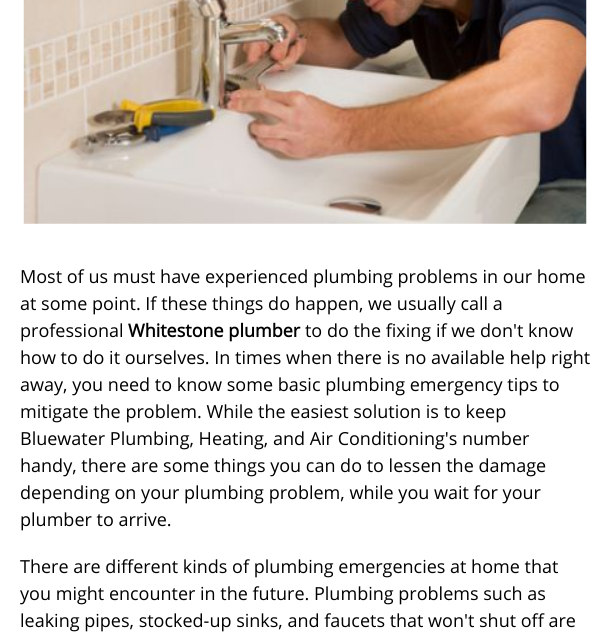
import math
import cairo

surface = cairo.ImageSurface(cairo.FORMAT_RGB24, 609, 633)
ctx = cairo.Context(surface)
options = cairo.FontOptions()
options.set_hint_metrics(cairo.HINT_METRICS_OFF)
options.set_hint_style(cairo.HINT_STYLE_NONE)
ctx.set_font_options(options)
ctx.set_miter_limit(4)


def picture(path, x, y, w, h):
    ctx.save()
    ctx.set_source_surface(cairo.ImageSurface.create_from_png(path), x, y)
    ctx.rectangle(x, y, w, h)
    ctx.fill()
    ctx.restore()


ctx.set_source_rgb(1, 1, 1)
ctx.paint()
picture("img1.png", 23, 0, 564, 224)
ctx.select_font_face("Open Sans")
ctx.set_font_size(18)
ctx.set_source_rgb(0, 0, 0)
ctx.move_to(20, 283)
ctx.show_text("Most of us must have experienced plumbing problems in our home")
ctx.move_to(20, 310)
ctx.show_text("at some point. If these things do happen, we usually call a")
ctx.move_to(20, 337)
ctx.show_text("professional")
ctx.select_font_face("Open Sans", cairo.FONT_SLANT_NORMAL, cairo.FONT_WEIGHT_BOLD)
ctx.move_to(128, 337)
ctx.show_text("Whitestone plumber")
ctx.select_font_face("Open Sans")
ctx.move_to(305, 337)
ctx.show_text("to do the fixing if we don't know")
ctx.move_to(20, 364)
ctx.show_text("how to do it ourselves. In times when there is no available help right")
ctx.move_to(20, 391)
ctx.show_text("away, you need to know some basic plumbing emergency tips to")
ctx.move_to(20, 418)
ctx.show_text("mitigate the problem. While the easiest solution is to keep")
ctx.move_to(20, 445)
ctx.show_text("Bluewater Plumbing, Heating, and Air Conditioning's number")
ctx.move_to(20, 472)
ctx.show_text("handy, there are some things you can do to lessen the damage")
ctx.move_to(20, 499)
ctx.show_text("depending on your plumbing problem, while you wait for your")
ctx.move_to(20, 526)
ctx.show_text("plumber to arrive.")
ctx.move_to(20, 573)
ctx.show_text("There are different kinds of plumbing emergencies at home that")
ctx.move_to(20, 600)
ctx.show_text("you might encounter in the future. Plumbing problems such as")
ctx.move_to(20, 627)
ctx.show_text("leaking pipes, stocked-up sinks, and faucets that won't shut off are")
surface.write_to_png("page.png")
